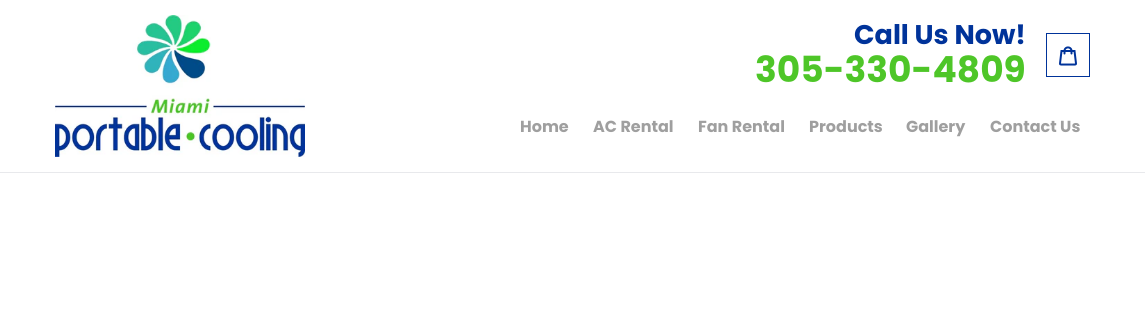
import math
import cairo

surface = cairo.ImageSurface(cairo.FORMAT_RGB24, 1145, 316)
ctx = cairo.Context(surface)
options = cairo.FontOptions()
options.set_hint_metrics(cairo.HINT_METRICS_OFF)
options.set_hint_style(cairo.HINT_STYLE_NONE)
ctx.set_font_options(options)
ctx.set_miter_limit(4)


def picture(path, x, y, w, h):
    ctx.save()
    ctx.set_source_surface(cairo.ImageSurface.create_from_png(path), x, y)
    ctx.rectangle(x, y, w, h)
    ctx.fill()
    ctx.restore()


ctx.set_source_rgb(1, 1, 1)
ctx.paint()
ctx.set_source_rgb(0.91, 0.914, 0.922)
ctx.rectangle(0, 172, 1145, 1)
ctx.fill()
picture("img1.png", 55, 15, 250, 142)
ctx.select_font_face("Poppins", cairo.FONT_SLANT_NORMAL, cairo.FONT_WEIGHT_BOLD)
ctx.set_font_size(27)
ctx.set_source_rgb(0, 0.2, 0.604)
ctx.move_to(854, 44)
ctx.show_text("Call Us Now!")
ctx.set_font_size(36)
ctx.set_source_rgb(0.306, 0.776, 0.157)
ctx.move_to(755, 82)
ctx.show_text("305-330-4809")
ctx.rectangle(1046.5, 33.5, 43, 43)
ctx.set_source_rgb(0, 0.2, 0.604)
ctx.set_line_width(1)
ctx.stroke()
picture("img2.png", 1059, 46, 18, 20)
ctx.set_font_size(16)
ctx.set_source_rgb(0.624, 0.624, 0.624)
ctx.move_to(520, 132)
ctx.show_text("Home")
ctx.move_to(593, 132)
ctx.show_text("AC Rental")
ctx.move_to(698, 132)
ctx.show_text("Fan Rental")
ctx.move_to(809, 132)
ctx.show_text("Products")
ctx.move_to(906, 132)
ctx.show_text("Gallery")
ctx.move_to(990, 132)
ctx.show_text("Contact Us")
surface.write_to_png("page.png")
